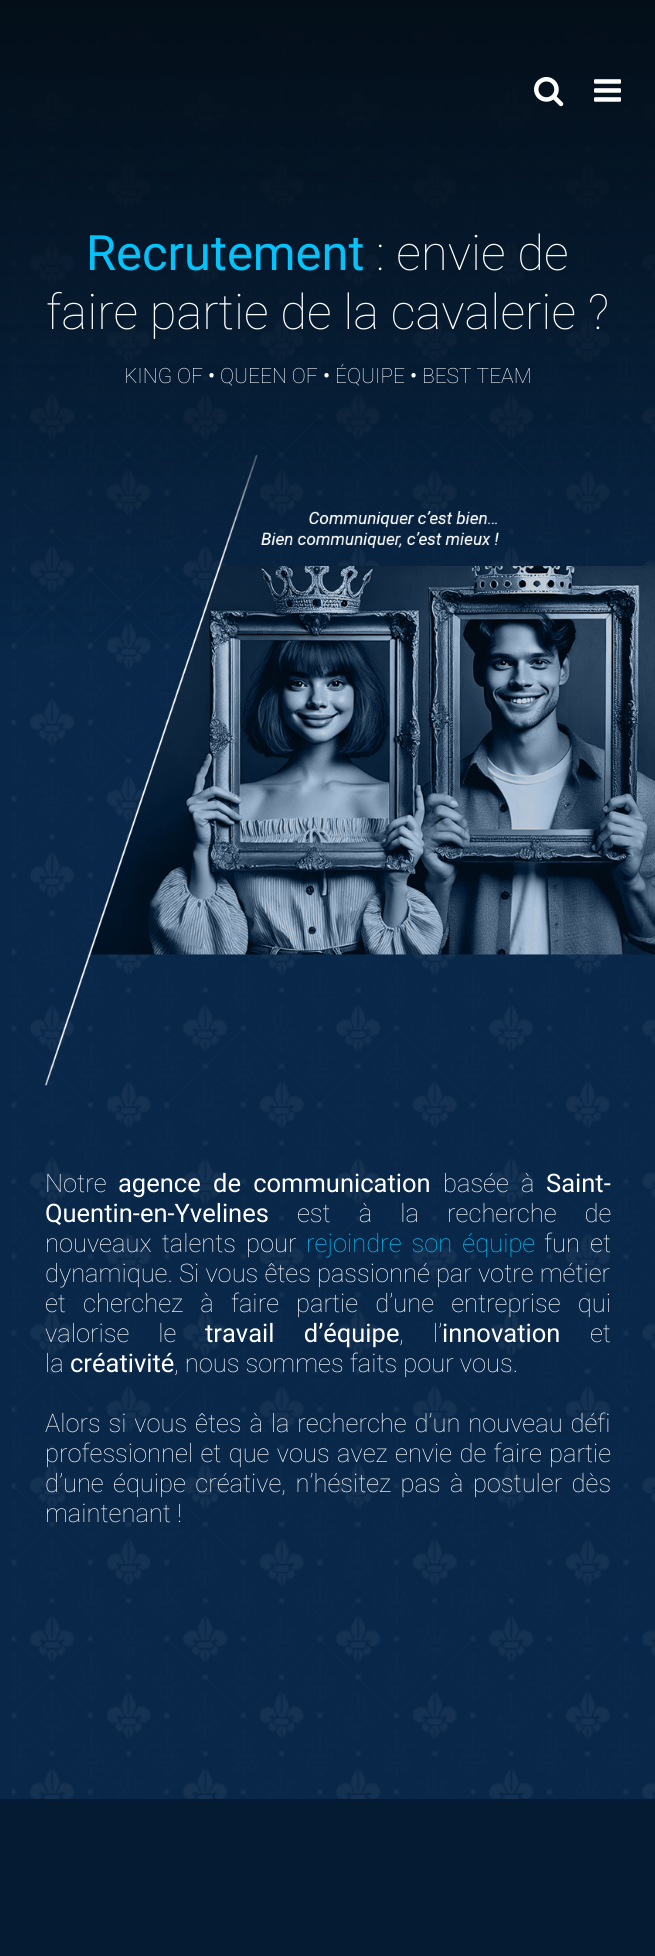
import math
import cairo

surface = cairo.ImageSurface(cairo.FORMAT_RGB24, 655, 1956)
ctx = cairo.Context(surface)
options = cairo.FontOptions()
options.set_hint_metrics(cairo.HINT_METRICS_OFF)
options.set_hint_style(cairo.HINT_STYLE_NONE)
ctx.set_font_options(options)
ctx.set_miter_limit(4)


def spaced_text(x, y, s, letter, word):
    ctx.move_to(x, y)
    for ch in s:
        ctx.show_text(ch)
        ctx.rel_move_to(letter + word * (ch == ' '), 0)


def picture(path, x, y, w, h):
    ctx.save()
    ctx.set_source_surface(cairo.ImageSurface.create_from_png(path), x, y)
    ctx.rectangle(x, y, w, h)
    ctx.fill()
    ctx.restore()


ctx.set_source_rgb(0.035, 0.153, 0.286)
ctx.paint()
picture("img3.png", 11, 13, 644, 1786)
gradient = cairo.LinearGradient(328, 0, 328, 1695)
gradient.add_color_stop_rgba(0, 0.012, 0.055, 0.094, 1)
gradient.add_color_stop_rgba(0.4, 0.012, 0.055, 0.094, 0)
ctx.set_source(gradient)
ctx.rectangle(0, 0, 655, 647)
ctx.fill()
picture("img1.png", 534, 77, 30, 30)
picture("img2.png", 594, 79, 27, 23)
ctx.select_font_face("Roboto")
ctx.set_font_size(48.8)
ctx.set_source_rgb(0.016, 0.765, 0.98)
ctx.move_to(86, 270)
ctx.show_text("Recrutement")
ctx.select_font_face("Roboto Thin")
ctx.set_source_rgb(1, 1, 1)
ctx.move_to(376, 270)
ctx.show_text(": envie de")
ctx.move_to(46, 329)
ctx.show_text("faire partie de la cavalerie ?")
ctx.set_font_size(21)
ctx.move_to(124, 383)
ctx.show_text("KING OF")
ctx.select_font_face("Roboto")
ctx.move_to(208, 383)
ctx.show_text("•")
ctx.select_font_face("Roboto Thin")
ctx.move_to(220, 383)
ctx.show_text("QUEEN OF")
ctx.select_font_face("Roboto")
ctx.move_to(323, 383)
ctx.show_text("•")
ctx.select_font_face("Roboto Thin")
ctx.move_to(335, 383)
ctx.show_text("ÉQUIPE")
ctx.select_font_face("Roboto")
ctx.move_to(410, 383)
ctx.show_text("•")
ctx.select_font_face("Roboto Thin")
ctx.move_to(422, 383)
ctx.show_text("BEST TEAM")
picture("img4.png", 45, 455, 610, 631)
ctx.set_font_size(25.5)
ctx.move_to(45, 1192)
ctx.show_text("Notre")
ctx.select_font_face("Roboto")
spaced_text(118, 1192, "agence de communication", 0, 6)
ctx.select_font_face("Roboto Thin")
spaced_text(443, 1192, "basée à", 0, 6)
ctx.select_font_face("Roboto")
ctx.move_to(546, 1192)
ctx.show_text("Saint-")
ctx.move_to(45, 1222)
ctx.show_text("Quentin-en-Yvelines")
ctx.select_font_face("Roboto Thin")
spaced_text(297, 1222, "est à la recherche de", 0, 22)
spaced_text(45, 1252, "nouveaux talents pour", 0, 4)
ctx.set_source_rgb(0.016, 0.765, 0.98)
spaced_text(306, 1252, "rejoindre son équipe", 0, 4)
ctx.set_source_rgb(1, 1, 1)
spaced_text(544, 1252, "fun et", 0, 4)
ctx.move_to(45, 1282)
ctx.show_text("dynamique. Si vous êtes passionné par votre métier")
spaced_text(45, 1312, "et cherchez à faire partie d’une entreprise qui", 0, 11)
spaced_text(45, 1342, "valorise le", 0, 23)
ctx.select_font_face("Roboto")
spaced_text(205, 1342, "travail d’équipe", 0, 23)
ctx.select_font_face("Roboto Thin")
spaced_text(399, 1342, ", l’", 0, 23)
ctx.select_font_face("Roboto")
ctx.move_to(442, 1342)
ctx.show_text("innovation")
ctx.select_font_face("Roboto Thin")
ctx.move_to(590, 1342)
ctx.show_text("et")
ctx.move_to(45, 1372)
ctx.show_text("la")
ctx.select_font_face("Roboto")
ctx.move_to(70, 1372)
ctx.show_text("créativité")
ctx.select_font_face("Roboto Thin")
ctx.move_to(174, 1372)
ctx.show_text(", nous sommes faits pour vous.")
spaced_text(45, 1432, "Alors si vous êtes à la recherche d’un nouveau défi", 0, 1.75)
spaced_text(45, 1462, "professionnel et que vous avez envie de faire partie", 0, 1.25)
spaced_text(45, 1492, "d’une équipe créative, n’hésitez pas à postuler dès", 0, 3.25)
ctx.move_to(45, 1522)
ctx.show_text("maintenant !")
ctx.set_source_rgb(0.016, 0.106, 0.2)
ctx.rectangle(0, 1799, 655, 157)
ctx.fill()
surface.write_to_png("page.png")
